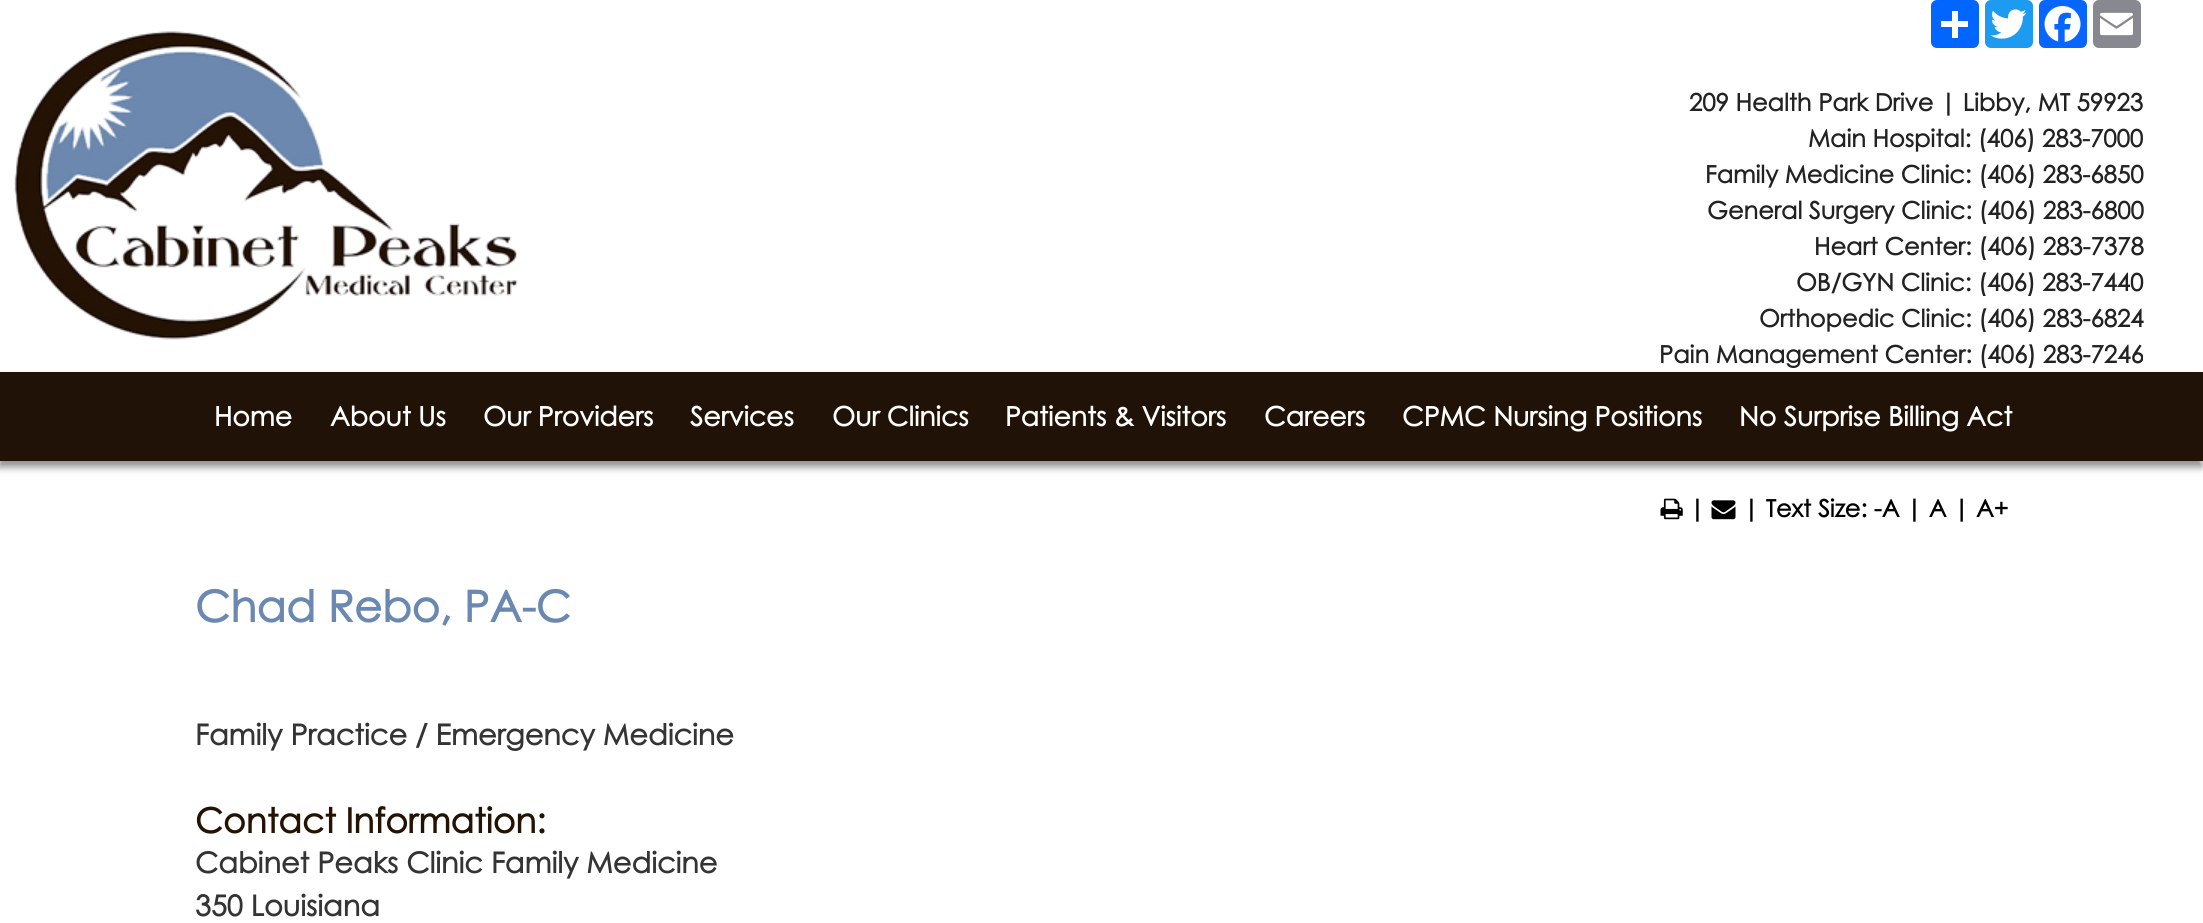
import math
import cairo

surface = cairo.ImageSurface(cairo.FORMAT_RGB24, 2203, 923)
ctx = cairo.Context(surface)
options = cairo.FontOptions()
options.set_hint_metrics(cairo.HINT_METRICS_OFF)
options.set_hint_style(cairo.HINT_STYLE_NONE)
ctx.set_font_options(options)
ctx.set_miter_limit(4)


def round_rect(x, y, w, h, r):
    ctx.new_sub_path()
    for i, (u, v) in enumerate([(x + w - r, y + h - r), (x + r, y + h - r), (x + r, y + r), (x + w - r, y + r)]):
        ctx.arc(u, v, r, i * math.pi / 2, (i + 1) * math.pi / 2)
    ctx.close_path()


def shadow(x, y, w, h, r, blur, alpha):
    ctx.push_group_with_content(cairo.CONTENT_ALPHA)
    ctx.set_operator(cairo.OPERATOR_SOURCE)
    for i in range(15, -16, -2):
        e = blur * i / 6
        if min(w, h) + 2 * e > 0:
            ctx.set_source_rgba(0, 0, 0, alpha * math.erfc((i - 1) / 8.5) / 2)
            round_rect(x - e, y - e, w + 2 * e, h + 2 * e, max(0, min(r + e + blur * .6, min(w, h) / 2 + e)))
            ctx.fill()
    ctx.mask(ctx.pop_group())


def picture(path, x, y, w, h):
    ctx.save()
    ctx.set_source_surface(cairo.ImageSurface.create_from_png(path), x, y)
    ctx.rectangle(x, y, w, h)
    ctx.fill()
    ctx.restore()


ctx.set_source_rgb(1, 1, 1)
ctx.paint()
picture("img1.png", 14, 31, 504, 309)
ctx.set_source_rgb(0.004, 0.4, 1)
round_rect(1931, 0, 48, 48, 6)
ctx.fill()
ctx.set_source_rgb(1, 1, 1)
ctx.rectangle(1952, 11, 6, 27)
ctx.fill()
ctx.rectangle(1941, 21, 27, 6)
ctx.fill()
ctx.set_source_rgb(0.114, 0.608, 0.941)
round_rect(1985, 0, 48, 48, 6)
ctx.fill()
picture("img2.png", 1990, 9, 37, 30)
ctx.set_source_rgb(0.031, 0.4, 1)
round_rect(2039, 0, 48, 48, 6)
ctx.fill()
picture("img3.png", 2044, 6, 37, 36)
ctx.set_source_rgb(0.533, 0.537, 0.565)
round_rect(2093, 0, 48, 48, 6)
ctx.fill()
picture("img4.png", 2100, 12, 33, 24)
ctx.select_font_face("Century Gothic", cairo.FONT_SLANT_NORMAL, cairo.FONT_WEIGHT_BOLD)
ctx.set_font_size(24)
ctx.set_source_rgb(0.133, 0.133, 0.133)
ctx.move_to(1689, 111)
ctx.show_text("209 Health Park Drive | Libby, MT 59923")
ctx.move_to(1808, 147)
ctx.show_text("Main Hospital: (406) 283-7000")
ctx.move_to(1705, 183)
ctx.show_text("Family Medicine Clinic: (406) 283-6850")
ctx.move_to(1707, 219)
ctx.show_text("General Surgery Clinic: (406) 283-6800")
ctx.move_to(1814, 255)
ctx.show_text("Heart Center: (406) 283-7378")
ctx.move_to(1796, 291)
ctx.show_text("OB/GYN Clinic: (406) 283-7440")
ctx.move_to(1759, 327)
ctx.show_text("Orthopedic Clinic: (406) 283-6824")
ctx.move_to(1659, 363)
ctx.show_text("Pain Management Center: (406) 283-7246")
ctx.set_source_rgb(0, 0, 0)
shadow(-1, 378, 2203, 89, 0, 4, 0.45)
ctx.set_source_rgb(0.125, 0.071, 0.024)
ctx.rectangle(0, 372, 2203, 89)
ctx.fill()
ctx.set_font_size(26.7)
ctx.set_source_rgb(1, 1, 1)
ctx.move_to(214, 426)
ctx.show_text("Home")
ctx.move_to(330, 426)
ctx.show_text("About Us")
ctx.move_to(483, 426)
ctx.show_text("Our Providers")
ctx.move_to(690, 426)
ctx.show_text("Services")
ctx.move_to(832, 426)
ctx.show_text("Our Clinics")
ctx.move_to(1005, 426)
ctx.show_text("Patients & Visitors")
ctx.move_to(1264, 426)
ctx.show_text("Careers")
ctx.move_to(1402, 426)
ctx.show_text("CPMC Nursing Positions")
ctx.move_to(1739, 426)
ctx.show_text("No Surprise Billing Act")
picture("img5.png", 1660, 498, 23, 22)
ctx.set_font_size(24)
ctx.set_source_rgb(0, 0, 0)
ctx.move_to(1689, 517)
ctx.show_text("|")
picture("img6.png", 1711, 500, 25, 20)
ctx.move_to(1743, 517)
ctx.show_text("| Text Size: -A | A | A+")
ctx.set_font_size(43.25)
ctx.set_source_rgb(0.416, 0.533, 0.69)
ctx.move_to(195, 622)
ctx.show_text("Chad Rebo, PA-C")
ctx.set_font_size(28.75)
ctx.set_source_rgb(0.204, 0.204, 0.204)
ctx.move_to(195, 745)
ctx.show_text("Family Practice / Emergency Medicine")
ctx.set_font_size(34.5)
ctx.set_source_rgb(0.141, 0.071, 0.012)
ctx.move_to(195, 833)
ctx.show_text("Contact Information:")
ctx.set_font_size(28.75)
ctx.set_source_rgb(0.204, 0.204, 0.204)
ctx.move_to(195, 873)
ctx.show_text("Cabinet Peaks Clinic Family Medicine")
ctx.move_to(195, 916)
ctx.show_text("350 Louisiana")
surface.write_to_png("page.png")
